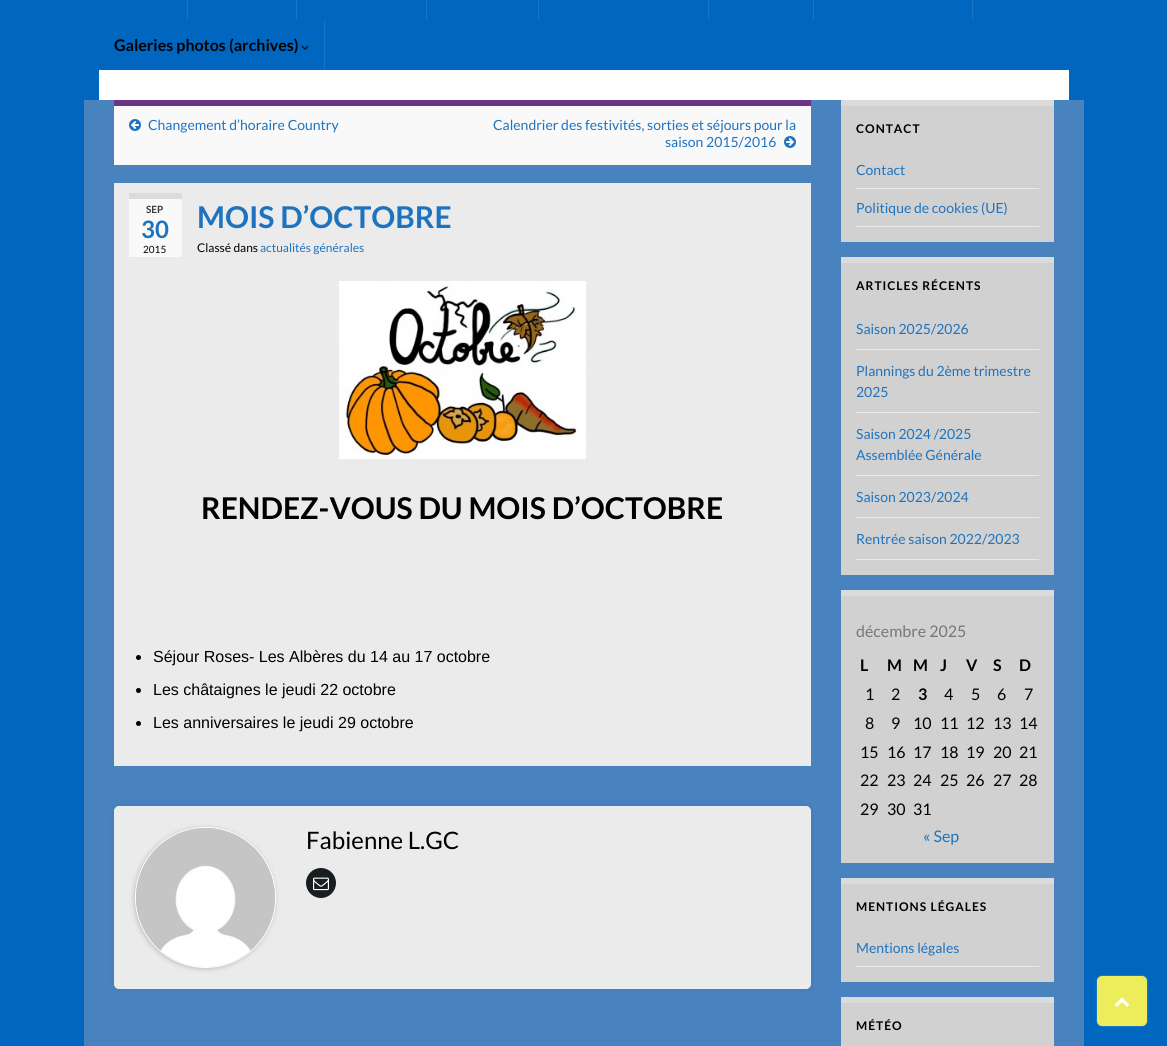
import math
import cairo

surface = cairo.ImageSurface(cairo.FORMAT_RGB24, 1167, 1046)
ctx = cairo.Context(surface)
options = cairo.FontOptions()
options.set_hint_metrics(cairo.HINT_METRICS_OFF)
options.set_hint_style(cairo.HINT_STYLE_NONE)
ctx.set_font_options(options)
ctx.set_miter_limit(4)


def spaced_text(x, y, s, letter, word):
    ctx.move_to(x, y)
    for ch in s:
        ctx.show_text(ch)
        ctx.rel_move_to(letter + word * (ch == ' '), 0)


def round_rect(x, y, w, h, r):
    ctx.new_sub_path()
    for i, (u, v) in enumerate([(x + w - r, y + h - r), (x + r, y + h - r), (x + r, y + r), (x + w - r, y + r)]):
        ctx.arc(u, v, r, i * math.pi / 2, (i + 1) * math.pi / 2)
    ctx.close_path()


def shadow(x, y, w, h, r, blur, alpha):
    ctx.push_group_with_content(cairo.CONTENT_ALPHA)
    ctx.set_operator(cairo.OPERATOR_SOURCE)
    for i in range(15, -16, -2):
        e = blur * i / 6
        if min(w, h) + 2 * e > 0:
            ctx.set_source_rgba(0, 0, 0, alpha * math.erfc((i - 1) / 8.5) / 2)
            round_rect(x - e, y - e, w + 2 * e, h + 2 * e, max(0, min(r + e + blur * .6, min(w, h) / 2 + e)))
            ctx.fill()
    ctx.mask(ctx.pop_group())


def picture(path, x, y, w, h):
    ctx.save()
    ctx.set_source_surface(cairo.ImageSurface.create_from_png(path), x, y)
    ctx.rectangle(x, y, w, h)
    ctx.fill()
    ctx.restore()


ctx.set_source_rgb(0, 0.4, 0.749)
ctx.paint()
ctx.set_source_rgb(0.102, 0.459, 0.773)
ctx.rectangle(187, 0, 1, 20)
ctx.fill()
ctx.rectangle(296, 0, 1, 20)
ctx.fill()
ctx.rectangle(426, 0, 1, 20)
ctx.fill()
ctx.rectangle(538, 0, 1, 20)
ctx.fill()
ctx.rectangle(708, 0, 1, 20)
ctx.fill()
ctx.rectangle(813, 0, 1, 20)
ctx.fill()
ctx.rectangle(972, 0, 1, 20)
ctx.fill()
ctx.rectangle(324, 20, 1, 50)
ctx.fill()
ctx.select_font_face("Lato", cairo.FONT_SLANT_NORMAL, cairo.FONT_WEIGHT_BOLD)
ctx.set_font_size(16)
ctx.set_source_rgb(0, 0, 0)
ctx.move_to(114, 51)
ctx.show_text("Galeries photos (archives)")
picture("img1.png", 301, 45, 8, 5)
ctx.set_source_rgb(1, 1, 1)
ctx.rectangle(99, 70, 970, 30)
ctx.fill()
ctx.set_source_rgb(0.282, 0.514, 0.749)
ctx.rectangle(84, 100, 1000, 946)
ctx.fill()
ctx.set_source_rgb(0.976, 0.976, 0.976)
ctx.rectangle(114, 106, 697, 59)
ctx.fill()
ctx.set_source_rgb(0.42, 0.208, 0.537)
ctx.rectangle(114, 100, 697, 6)
ctx.fill()
picture("img2.png", 129, 119, 12, 12)
ctx.select_font_face("Lato")
ctx.set_font_size(14)
ctx.set_source_rgb(0.118, 0.451, 0.745)
ctx.move_to(148, 130)
ctx.show_text("Changement d’horaire Country")
ctx.move_to(493, 130)
ctx.show_text("Calendrier des festivités, sorties et séjours pour la")
ctx.move_to(665, 147)
ctx.show_text("saison 2015/2016")
picture("img3.png", 784, 136, 12, 12)
ctx.set_source_rgb(0.918, 0.918, 0.918)
ctx.rectangle(114, 183, 697, 583)
ctx.fill()
ctx.set_source_rgb(0.976, 0.976, 0.976)
ctx.rectangle(129, 199, 53, 58)
ctx.fill()
ctx.set_source_rgb(0.859, 0.859, 0.859)
ctx.rectangle(129, 193, 53, 6)
ctx.fill()
ctx.select_font_face("Lato", cairo.FONT_SLANT_NORMAL, cairo.FONT_WEIGHT_BOLD)
ctx.set_font_size(10)
ctx.set_source_rgb(0.231, 0.22, 0.239)
ctx.move_to(146, 213)
ctx.show_text("SEP")
ctx.set_font_size(24)
ctx.set_source_rgb(0.118, 0.451, 0.745)
ctx.move_to(141, 238)
ctx.show_text("30")
ctx.select_font_face("Lato")
ctx.set_font_size(10)
ctx.set_source_rgb(0, 0, 0)
ctx.move_to(143, 253)
ctx.show_text("2015")
ctx.select_font_face("Lato", cairo.FONT_SLANT_NORMAL, cairo.FONT_WEIGHT_BOLD)
ctx.set_font_size(30)
ctx.set_source_rgb(0.118, 0.451, 0.745)
ctx.move_to(197, 228)
ctx.show_text("MOIS D’OCTOBRE")
ctx.select_font_face("Lato")
ctx.set_font_size(12)
ctx.set_source_rgb(0, 0, 0)
ctx.move_to(197, 252)
ctx.show_text("Classé dans")
ctx.set_source_rgb(0.118, 0.451, 0.745)
ctx.move_to(260, 252)
ctx.show_text("actualités générales")
picture("img4.png", 339, 281, 247, 178)
ctx.select_font_face("Lato", cairo.FONT_SLANT_NORMAL, cairo.FONT_WEIGHT_BOLD)
ctx.set_font_size(30)
ctx.set_source_rgb(0, 0, 0)
ctx.move_to(201, 519)
ctx.show_text("RENDEZ-VOUS DU MOIS D’OCTOBRE")
ctx.new_path()
ctx.arc(138.5, 657.5, 2.5, 0, 2 * math.pi)
ctx.fill()
ctx.select_font_face("Liberation Sans")
ctx.set_font_size(16)
ctx.move_to(153, 662)
ctx.show_text("Séjour Roses- Les Albères du 14 au 17 octobre")
ctx.new_path()
ctx.arc(138.5, 690.5, 2.5, 0, 2 * math.pi)
ctx.fill()
ctx.move_to(153, 695)
ctx.show_text("Les châtaignes le jeudi 22 octobre")
ctx.new_path()
ctx.arc(138.5, 723.5, 2.5, 0, 2 * math.pi)
ctx.fill()
ctx.move_to(153, 728)
ctx.show_text("Les anniversaires le jeudi 29 octobre")
ctx.set_source_rgb(0, 0, 0)
shadow(114, 806, 697, 183, 5, 2.5, 0.1)
ctx.set_source_rgb(0.918, 0.918, 0.918)
round_rect(114.5, 806.5, 696, 182, 4.5)
ctx.fill_preserve()
ctx.set_source_rgb(0.922, 0.929, 0.941)
ctx.set_line_width(1)
ctx.stroke()
ctx.set_source_rgb(0, 0, 0)
shadow(134, 828, 141, 141, 70.5, 2.5, 0.2)
ctx.arc(205.5, 897.5, 70, 0, 2 * math.pi)
ctx.set_source_rgb(1, 1, 1)
ctx.stroke()
picture("img5.png", 136, 828, 139, 139)
ctx.select_font_face("Lato")
ctx.set_font_size(24)
ctx.set_source_rgb(0, 0, 0)
ctx.move_to(306, 849)
ctx.show_text("Fabienne L.GC")
ctx.set_source_rgb(0.094, 0.118, 0.122)
ctx.new_path()
ctx.arc(321, 883, 15, 0, 2 * math.pi)
ctx.fill()
picture("img6.png", 313, 877, 16, 14)
ctx.set_source_rgb(0.82, 0.82, 0.82)
ctx.rectangle(841, 106, 213, 136)
ctx.fill()
ctx.set_source_rgb(0.859, 0.859, 0.859)
ctx.rectangle(841, 100, 213, 6)
ctx.fill()
ctx.select_font_face("Lato", cairo.FONT_SLANT_NORMAL, cairo.FONT_WEIGHT_BOLD)
ctx.set_font_size(12)
ctx.set_source_rgb(0, 0, 0)
spaced_text(856, 133, "CONTACT", 1, 0)
ctx.set_source_rgb(0.914, 0.914, 0.914)
ctx.rectangle(856, 188, 183, 1)
ctx.fill()
ctx.select_font_face("Lato")
ctx.set_font_size(14)
ctx.set_source_rgb(0.118, 0.451, 0.745)
ctx.move_to(856, 175)
ctx.show_text("Contact")
ctx.set_source_rgb(0.914, 0.914, 0.914)
ctx.rectangle(856, 226, 183, 1)
ctx.fill()
ctx.set_source_rgb(0.118, 0.451, 0.745)
ctx.move_to(856, 213)
ctx.show_text("Politique de cookies (UE)")
ctx.set_source_rgb(0.82, 0.82, 0.82)
ctx.rectangle(841, 263, 213, 312)
ctx.fill()
ctx.set_source_rgb(0.859, 0.859, 0.859)
ctx.rectangle(841, 257, 213, 6)
ctx.fill()
ctx.select_font_face("Lato", cairo.FONT_SLANT_NORMAL, cairo.FONT_WEIGHT_BOLD)
ctx.set_font_size(12)
ctx.set_source_rgb(0, 0, 0)
spaced_text(856, 290, "ARTICLES RÉCENTS", 1, 0)
ctx.set_source_rgb(0.914, 0.914, 0.914)
ctx.rectangle(856, 349, 183, 1)
ctx.fill()
ctx.select_font_face("Lato")
ctx.set_font_size(14)
ctx.set_source_rgb(0.118, 0.451, 0.745)
ctx.move_to(856, 334)
ctx.show_text("Saison 2025/2026")
ctx.set_source_rgb(0.914, 0.914, 0.914)
ctx.rectangle(856, 412, 183, 1)
ctx.fill()
ctx.set_source_rgb(0.118, 0.451, 0.745)
ctx.move_to(856, 376)
ctx.show_text("Plannings du 2ème trimestre")
ctx.move_to(856, 397)
ctx.show_text("2025")
ctx.set_source_rgb(0.914, 0.914, 0.914)
ctx.rectangle(856, 475, 183, 1)
ctx.fill()
ctx.set_source_rgb(0.118, 0.451, 0.745)
ctx.move_to(856, 439)
ctx.show_text("Saison 2024 /2025")
ctx.move_to(856, 460)
ctx.show_text("Assemblée Générale")
ctx.set_source_rgb(0.914, 0.914, 0.914)
ctx.rectangle(856, 517, 183, 1)
ctx.fill()
ctx.set_source_rgb(0.118, 0.451, 0.745)
ctx.move_to(856, 502)
ctx.show_text("Saison 2023/2024")
ctx.set_source_rgb(0.914, 0.914, 0.914)
ctx.rectangle(856, 559, 183, 1)
ctx.fill()
ctx.set_source_rgb(0.118, 0.451, 0.745)
ctx.move_to(856, 544)
ctx.show_text("Rentrée saison 2022/2023")
ctx.set_source_rgb(0.82, 0.82, 0.82)
ctx.rectangle(841, 596, 213, 267)
ctx.fill()
ctx.set_source_rgb(0.859, 0.859, 0.859)
ctx.rectangle(841, 590, 213, 6)
ctx.fill()
ctx.set_font_size(16)
ctx.set_source_rgb(0.467, 0.467, 0.467)
ctx.move_to(856, 637)
ctx.show_text("décembre 2025")
ctx.select_font_face("Lato", cairo.FONT_SLANT_NORMAL, cairo.FONT_WEIGHT_BOLD)
ctx.set_source_rgb(0, 0, 0)
ctx.move_to(860, 671)
ctx.show_text("L")
ctx.move_to(887, 671)
ctx.show_text("M")
ctx.move_to(913, 671)
ctx.show_text("M")
ctx.move_to(940, 671)
ctx.show_text("J")
ctx.move_to(966, 671)
ctx.show_text("V")
ctx.move_to(993, 671)
ctx.show_text("S")
ctx.move_to(1019, 671)
ctx.show_text("D")
ctx.select_font_face("Lato")
ctx.move_to(865, 700)
ctx.show_text("1")
ctx.move_to(891, 700)
ctx.show_text("2")
ctx.select_font_face("Lato", cairo.FONT_SLANT_NORMAL, cairo.FONT_WEIGHT_BOLD)
ctx.move_to(918, 700)
ctx.show_text("3")
ctx.select_font_face("Lato")
ctx.move_to(944, 700)
ctx.show_text("4")
ctx.move_to(971, 700)
ctx.show_text("5")
ctx.move_to(997, 700)
ctx.show_text("6")
ctx.move_to(1024, 700)
ctx.show_text("7")
ctx.move_to(865, 729)
ctx.show_text("8")
ctx.move_to(891, 729)
ctx.show_text("9")
ctx.move_to(913, 729)
ctx.show_text("10")
ctx.move_to(940, 729)
ctx.show_text("11")
ctx.move_to(966, 729)
ctx.show_text("12")
ctx.move_to(993, 729)
ctx.show_text("13")
ctx.move_to(1019, 729)
ctx.show_text("14")
ctx.move_to(860, 758)
ctx.show_text("15")
ctx.move_to(887, 758)
ctx.show_text("16")
ctx.move_to(913, 758)
ctx.show_text("17")
ctx.move_to(940, 758)
ctx.show_text("18")
ctx.move_to(966, 758)
ctx.show_text("19")
ctx.move_to(993, 758)
ctx.show_text("20")
ctx.move_to(1019, 758)
ctx.show_text("21")
ctx.move_to(860, 786)
ctx.show_text("22")
ctx.move_to(887, 786)
ctx.show_text("23")
ctx.move_to(913, 786)
ctx.show_text("24")
ctx.move_to(940, 786)
ctx.show_text("25")
ctx.move_to(966, 786)
ctx.show_text("26")
ctx.move_to(993, 786)
ctx.show_text("27")
ctx.move_to(1019, 786)
ctx.show_text("28")
ctx.move_to(860, 815)
ctx.show_text("29")
ctx.move_to(887, 815)
ctx.show_text("30")
ctx.move_to(913, 815)
ctx.show_text("31")
ctx.set_source_rgb(0.118, 0.451, 0.745)
ctx.move_to(923, 842)
ctx.show_text("« Sep")
ctx.set_source_rgb(0.82, 0.82, 0.82)
ctx.rectangle(841, 884, 213, 98)
ctx.fill()
ctx.set_source_rgb(0.859, 0.859, 0.859)
ctx.rectangle(841, 878, 213, 6)
ctx.fill()
ctx.select_font_face("Lato", cairo.FONT_SLANT_NORMAL, cairo.FONT_WEIGHT_BOLD)
ctx.set_font_size(12)
ctx.set_source_rgb(0, 0, 0)
spaced_text(856, 911, "MENTIONS LÉGALES", 1, 0)
ctx.set_source_rgb(0.914, 0.914, 0.914)
ctx.rectangle(856, 966, 183, 1)
ctx.fill()
ctx.select_font_face("Lato")
ctx.set_font_size(14)
ctx.set_source_rgb(0.118, 0.451, 0.745)
ctx.move_to(856, 953)
ctx.show_text("Mentions légales")
ctx.set_source_rgb(0.82, 0.82, 0.82)
ctx.rectangle(841, 1003, 213, 43)
ctx.fill()
ctx.set_source_rgb(0.859, 0.859, 0.859)
ctx.rectangle(841, 997, 213, 6)
ctx.fill()
ctx.select_font_face("Lato", cairo.FONT_SLANT_NORMAL, cairo.FONT_WEIGHT_BOLD)
ctx.set_font_size(12)
ctx.set_source_rgb(0, 0, 0)
spaced_text(856, 1030, "MÉTÉO", 1, 0)
ctx.set_source_rgb(1, 1, 1)
shadow(1097, 976, 50, 50, 5, 1, 0.3)
ctx.set_source_rgb(0.929, 0.929, 0.361)
round_rect(1097, 976, 50, 50, 5)
ctx.fill()
picture("img7.png", 1114, 997, 16, 10)
surface.write_to_png("page.png")
